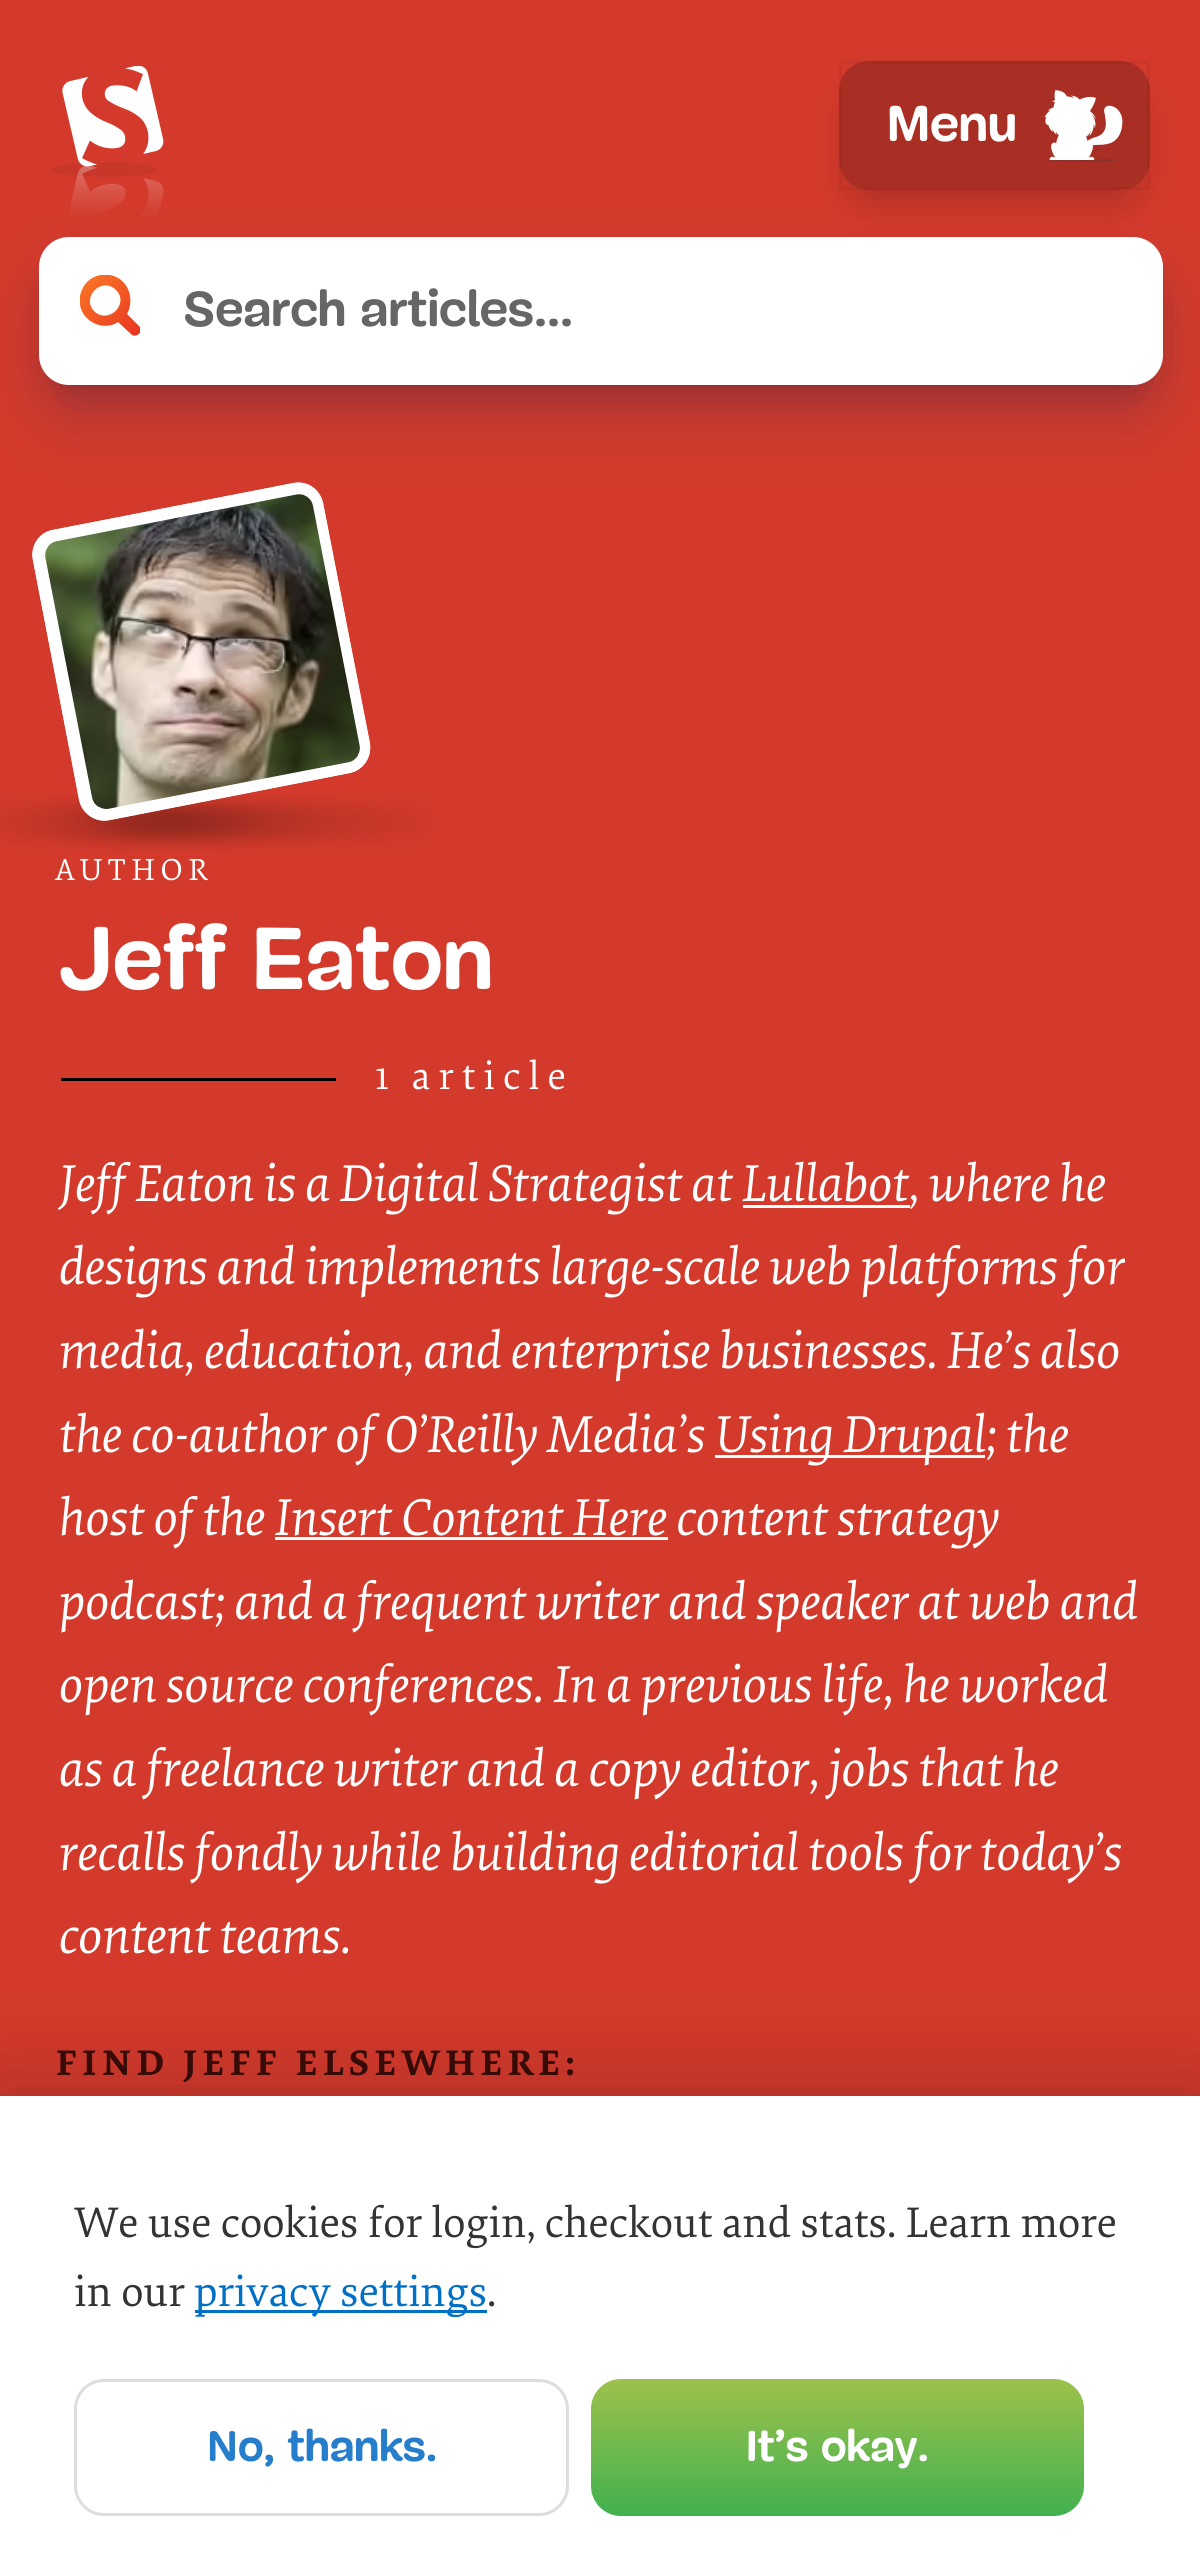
import math
import cairo

surface = cairo.ImageSurface(cairo.FORMAT_RGB24, 1200, 2565)
ctx = cairo.Context(surface)
options = cairo.FontOptions()
options.set_hint_metrics(cairo.HINT_METRICS_OFF)
options.set_hint_style(cairo.HINT_STYLE_NONE)
ctx.set_font_options(options)
ctx.set_miter_limit(4)


def spaced_text(x, y, s, letter, word):
    ctx.move_to(x, y)
    for ch in s:
        ctx.show_text(ch)
        ctx.rel_move_to(letter + word * (ch == ' '), 0)


def round_rect(x, y, w, h, r):
    ctx.new_sub_path()
    for i, (u, v) in enumerate([(x + w - r, y + h - r), (x + r, y + h - r), (x + r, y + r), (x + w - r, y + r)]):
        ctx.arc(u, v, r, i * math.pi / 2, (i + 1) * math.pi / 2)
    ctx.close_path()


def shadow(x, y, w, h, r, blur, alpha):
    ctx.push_group_with_content(cairo.CONTENT_ALPHA)
    ctx.set_operator(cairo.OPERATOR_SOURCE)
    for i in range(15, -16, -2):
        e = blur * i / 6
        if min(w, h) + 2 * e > 0:
            ctx.set_source_rgba(0, 0, 0, alpha * math.erfc((i - 1) / 8.5) / 2)
            round_rect(x - e, y - e, w + 2 * e, h + 2 * e, max(0, min(r + e + blur * .6, min(w, h) / 2 + e)))
            ctx.fill()
    ctx.mask(ctx.pop_group())


def picture(path, x, y, w, h):
    ctx.save()
    ctx.set_source_surface(cairo.ImageSurface.create_from_png(path), x, y)
    ctx.rectangle(x, y, w, h)
    ctx.fill()
    ctx.restore()


ctx.set_source_rgb(0.827, 0.227, 0.173)
ctx.paint()
picture("img1.png", 52, 66, 112, 150)
ctx.save()
ctx.set_fill_rule(cairo.FILL_RULE_EVEN_ODD)
ctx.new_path()
ctx.move_to(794, 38)
ctx.line_to(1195, 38)
ctx.line_to(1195, 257)
ctx.line_to(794, 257)
ctx.close_path()
ctx.move_to(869, 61)
ctx.line_to(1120, 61)
ctx.curve_to(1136.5, 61, 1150, 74.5, 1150, 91)
ctx.line_to(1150, 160)
ctx.curve_to(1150, 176.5, 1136.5, 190, 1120, 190)
ctx.line_to(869, 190)
ctx.curve_to(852.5, 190, 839, 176.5, 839, 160)
ctx.line_to(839, 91)
ctx.curve_to(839, 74.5, 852.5, 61, 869, 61)
ctx.close_path()
ctx.clip()
ctx.set_source_rgb(0, 0, 0)
shadow(861, 105, 267, 85, 8, 22, 0.3)
ctx.restore()
ctx.set_source_rgba(0, 0, 0, 0.2)
round_rect(839, 61, 311, 129, 30)
ctx.fill()
ctx.rectangle(840.5, 62.5, 308, 126)
ctx.set_source_rgba(0, 0, 0, 0.05)
ctx.set_line_width(3)
ctx.stroke()
ctx.select_font_face("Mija", cairo.FONT_SLANT_NORMAL, cairo.FONT_WEIGHT_BOLD)
ctx.set_font_size(52)
ctx.set_source_rgb(1, 1, 1)
ctx.move_to(887, 141)
ctx.show_text("Menu")
picture("img2.png", 1044, 90, 79, 72)
ctx.set_source_rgb(0, 0, 0)
shadow(61, 281, 1080, 104, 8, 22, 0.3)
picture("img4.png", 0, 795, 433, 56)
ctx.set_source_rgb(1, 1, 1)
ctx.new_path()
ctx.move_to(53, 530)
ctx.line_to(293, 483)
ctx.curve_to(307, 480, 320, 489, 323, 503)
ctx.line_to(370, 743)
ctx.curve_to(372, 757, 363, 771, 349, 773)
ctx.line_to(109, 820)
ctx.curve_to(96, 823, 82, 814, 79, 800)
ctx.line_to(33, 560)
ctx.curve_to(30, 546, 39, 532, 53, 530)
ctx.close_path()
ctx.fill()
ctx.new_path()
ctx.move_to(54, 535.5)
ctx.line_to(294, 489)
ctx.curve_to(305, 486.5, 315, 493.5, 317.5, 504.5)
ctx.line_to(364, 744.5)
ctx.curve_to(366, 755, 359, 765.5, 348, 767.5)
ctx.line_to(108.5, 814.5)
ctx.curve_to(97.5, 816.5, 87, 809.5, 85, 798.5)
ctx.line_to(38.5, 558.5)
ctx.curve_to(36.5, 548, 43.5, 537.5, 54, 535.5)
ctx.close_path()
ctx.set_line_width(11.6)
ctx.stroke()
picture("img3.png", 45, 494, 315, 315)
ctx.set_source_rgb(0.196, 0.196, 0.365)
shadow(52, 286, 1098, 121, 17, 37, 0.25)
ctx.set_source_rgb(1, 1, 1)
round_rect(39, 237, 1124, 148, 30)
ctx.fill()
ctx.save()
ctx.rectangle(80, 275, 60, 61)
ctx.clip()
gradient = cairo.LinearGradient(136, 335, 89, 283)
gradient.add_color_stop_rgba(0, 0.914, 0.216, 0.133, 1)
gradient.add_color_stop_rgba(1, 0.973, 0.435, 0.145, 1)
ctx.set_source(gradient)
ctx.new_path()
ctx.move_to(139, 326)
ctx.line_to(127, 314)
ctx.curve_to(133, 303, 131, 288, 121, 280)
ctx.curve_to(111, 272, 96, 273, 87, 282)
ctx.curve_to(78, 292, 77, 306, 85, 316)
ctx.curve_to(93, 326, 108, 329, 118, 322)
ctx.line_to(132, 335)
ctx.curve_to(138, 338, 144, 330, 139, 326)
ctx.close_path()
ctx.move_to(94, 311)
ctx.curve_to(81, 297, 102, 276, 116, 290)
ctx.curve_to(130, 304, 108, 325, 94, 311)
ctx.close_path()
ctx.fill()
ctx.restore()
ctx.set_font_size(50.75)
ctx.set_source_rgb(0.4, 0.4, 0.4)
ctx.move_to(183, 326)
ctx.show_text("Search articles...")
ctx.select_font_face("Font")
ctx.set_font_size(31.75)
ctx.set_source_rgb(1, 1, 1)
spaced_text(56, 880, "AUTHOR", 5.5, 0)
ctx.select_font_face("Mija", cairo.FONT_SLANT_NORMAL, cairo.FONT_WEIGHT_BOLD)
ctx.set_font_size(90.75)
ctx.move_to(56, 989)
ctx.show_text("Jeff Eaton")
ctx.set_source_rgb(0, 0, 0)
ctx.rectangle(61, 1078, 275, 3)
ctx.fill()
ctx.select_font_face("Font")
ctx.set_font_size(40.5)
ctx.set_source_rgb(1, 1, 1)
spaced_text(375, 1089, "1 article", 8.25, -2)
ctx.select_font_face("Font", cairo.FONT_SLANT_ITALIC)
ctx.set_font_size(54.1)
ctx.move_to(59, 1201)
ctx.show_text("Jeff Eaton is a Digital Strategist at")
ctx.rectangle(743, 1205, 167, 3)
ctx.fill()
ctx.move_to(742, 1201)
ctx.show_text("Lullabot, where he")
ctx.move_to(59, 1284)
ctx.show_text("designs and implements large-scale web platforms for")
ctx.move_to(59, 1368)
ctx.show_text("media, education, and enterprise businesses. He’s also")
ctx.move_to(59, 1452)
ctx.show_text("the co-author of O’Reilly Media’s")
ctx.rectangle(715, 1455, 270, 3)
ctx.fill()
ctx.move_to(715, 1452)
ctx.show_text("Using Drupal; the")
ctx.move_to(59, 1535)
ctx.show_text("host of the Insert Content Here content strategy")
ctx.rectangle(275, 1537, 393, 3)
ctx.fill()
ctx.move_to(59, 1619)
ctx.show_text("podcast; and a frequent writer and speaker at web and")
ctx.move_to(59, 1702)
ctx.show_text("open source conferences. In a previous life, he worked")
ctx.move_to(59, 1786)
ctx.show_text("as a freelance writer and a copy editor, jobs that he")
ctx.move_to(59, 1870)
ctx.show_text("recalls fondly while building editorial tools for today’s")
ctx.move_to(59, 1953)
ctx.show_text("content teams.")
ctx.select_font_face("Font", cairo.FONT_SLANT_NORMAL, cairo.FONT_WEIGHT_BOLD)
ctx.set_font_size(37.1)
ctx.set_source_rgb(0.224, 0.047, 0.035)
spaced_text(56, 2075, "FIND JEFF ELSEWHERE:", 5.5, 0)
ctx.set_source_rgb(0, 0, 0)
shadow(0, 2112, 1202, 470, 0, 55, 0.3)
ctx.set_source_rgb(1, 1, 1)
ctx.rectangle(0, 2096, 1200, 469)
ctx.fill()
ctx.select_font_face("Font")
ctx.set_font_size(44.55)
ctx.set_source_rgb(0.2, 0.2, 0.2)
ctx.move_to(74, 2237)
ctx.show_text("We use cookies for login, checkout and stats. Learn more")
ctx.move_to(74, 2306)
ctx.show_text("in our")
ctx.set_source_rgb(0, 0.435, 0.776)
ctx.rectangle(195, 2310, 292, 3)
ctx.fill()
ctx.move_to(194, 2306)
ctx.show_text("privacy settings")
ctx.set_source_rgb(0.2, 0.2, 0.2)
ctx.move_to(487, 2306)
ctx.show_text(".")
round_rect(75.5, 2380.5, 492, 134, 28.5)
ctx.set_source_rgb(0.867, 0.867, 0.867)
ctx.set_line_width(3)
ctx.stroke()
ctx.select_font_face("Mija", cairo.FONT_SLANT_NORMAL, cairo.FONT_WEIGHT_BOLD)
ctx.set_source_rgb(0.149, 0.49, 0.8)
ctx.move_to(207, 2461)
ctx.show_text("No, thanks.")
gradient = cairo.LinearGradient(837, 2379, 837, 2516)
gradient.add_color_stop_rgba(0, 0.62, 0.757, 0.298, 1)
gradient.add_color_stop_rgba(1, 0.255, 0.694, 0.31, 1)
ctx.set_source(gradient)
round_rect(591, 2379, 493, 137, 30)
ctx.fill()
ctx.set_source_rgb(1, 1, 1)
ctx.move_to(746, 2461)
ctx.show_text("It’s okay.")
surface.write_to_png("page.png")
